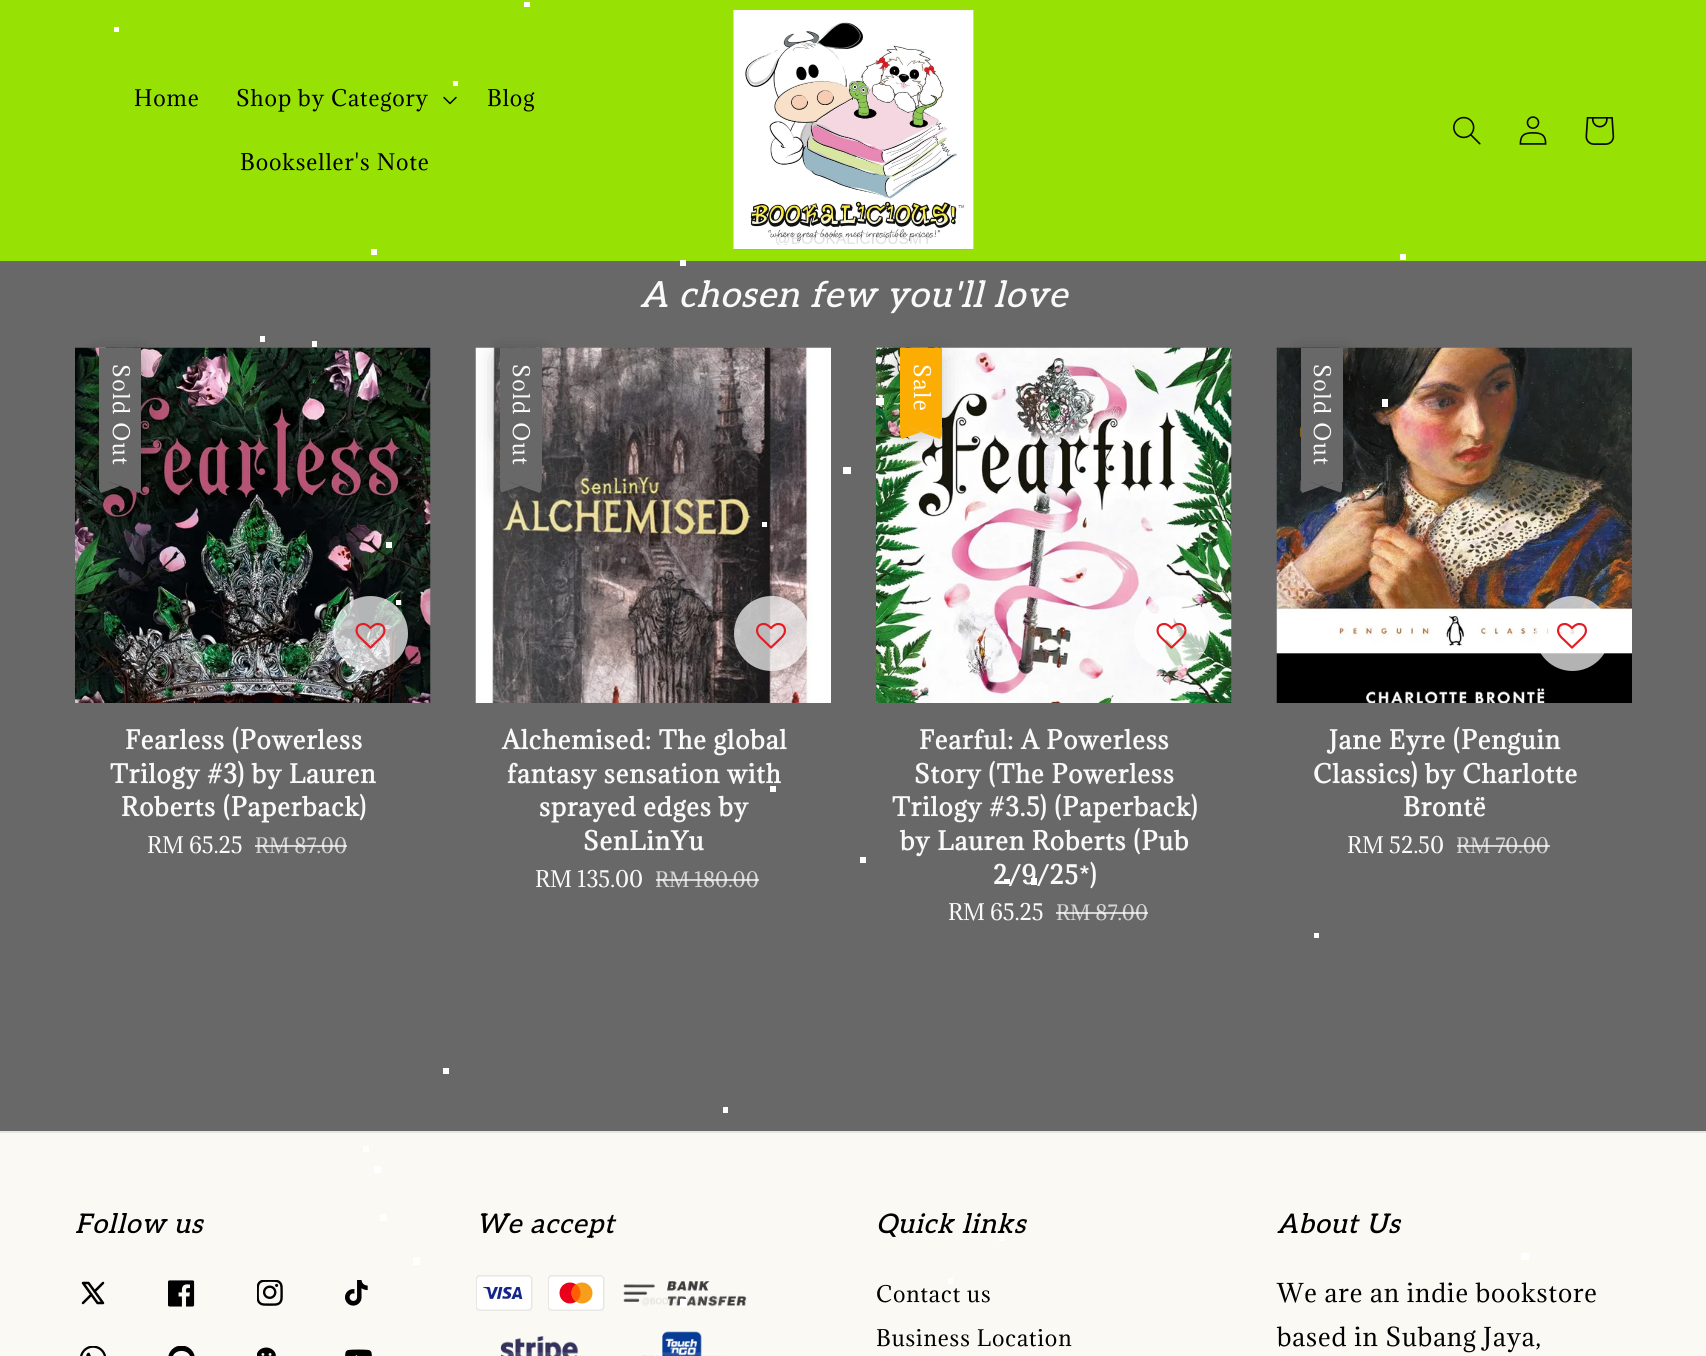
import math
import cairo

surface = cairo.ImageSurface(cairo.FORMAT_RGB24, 1706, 1356)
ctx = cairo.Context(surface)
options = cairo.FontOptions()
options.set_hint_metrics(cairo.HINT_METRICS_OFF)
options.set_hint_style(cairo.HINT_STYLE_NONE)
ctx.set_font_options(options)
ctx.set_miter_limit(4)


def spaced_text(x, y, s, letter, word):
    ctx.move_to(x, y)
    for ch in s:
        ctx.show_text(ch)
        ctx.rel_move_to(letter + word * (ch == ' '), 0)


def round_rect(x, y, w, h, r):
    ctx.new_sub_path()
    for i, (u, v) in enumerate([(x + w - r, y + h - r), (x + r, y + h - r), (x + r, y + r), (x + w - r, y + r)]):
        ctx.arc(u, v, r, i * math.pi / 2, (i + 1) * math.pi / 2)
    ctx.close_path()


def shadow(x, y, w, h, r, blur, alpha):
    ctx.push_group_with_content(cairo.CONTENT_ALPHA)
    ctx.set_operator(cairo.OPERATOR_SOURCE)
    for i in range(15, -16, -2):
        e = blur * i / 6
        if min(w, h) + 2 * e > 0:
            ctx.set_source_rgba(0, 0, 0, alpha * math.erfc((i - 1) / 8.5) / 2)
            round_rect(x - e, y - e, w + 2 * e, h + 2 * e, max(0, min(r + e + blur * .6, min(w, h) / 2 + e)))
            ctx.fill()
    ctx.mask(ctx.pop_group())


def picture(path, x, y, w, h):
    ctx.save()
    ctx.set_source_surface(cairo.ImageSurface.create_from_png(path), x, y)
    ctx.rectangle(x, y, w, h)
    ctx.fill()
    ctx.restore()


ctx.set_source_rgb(0.412, 0.408, 0.412)
ctx.paint()
ctx.set_source_rgb(0.592, 0.882, 0.016)
ctx.rectangle(0, 0, 1706, 261)
ctx.fill()
ctx.set_source_rgb(1, 1, 1)
ctx.rectangle(524, 2, 6, 5)
ctx.fill()
ctx.rectangle(114, 27, 5, 5)
ctx.fill()
ctx.rectangle(453, 81, 5, 5)
ctx.fill()
ctx.select_font_face("Adamina")
ctx.set_font_size(21)
ctx.set_source_rgb(0, 0, 0)
spaced_text(134, 106, "Home", 0.9, 0)
spaced_text(236, 106, "Shop by Category", 0.9, 0)
picture("img1.png", 443, 96, 14, 9)
spaced_text(487, 106, "Blog", 0.9, 0)
spaced_text(240, 170, "Bookseller's Note", 0.9, 0)
picture("img2.png", 733, 10, 241, 240)
picture("img3.png", 1453, 116, 28, 29)
picture("img4.png", 1519, 116, 28, 29)
picture("img5.png", 1585, 117, 30, 28)
ctx.set_source_rgb(1, 1, 1)
ctx.rectangle(371, 249, 6, 6)
ctx.fill()
ctx.rectangle(1400, 254, 6, 6)
ctx.fill()
ctx.rectangle(680, 260, 6, 6)
ctx.fill()
ctx.select_font_face("Aleo Medium", cairo.FONT_SLANT_ITALIC)
ctx.set_font_size(36)
ctx.set_source_rgb(0.98, 0.973, 0.973)
spaced_text(640, 307, "A chosen few you'll love", 0.9, 0)
picture("img6.png", 75, 347, 356, 356)
ctx.set_source_rgb(0, 0, 0)
shadow(99, 357, 42, 80, 0, 11, 0.2)
shadow(99, 357, 42, 134, 0, 11, 0.2)
ctx.set_source_rgb(0.412, 0.408, 0.412)
ctx.rectangle(99, 348, 42, 134)
ctx.fill()
ctx.select_font_face("Adamina")
ctx.set_font_size(21)
ctx.set_source_rgb(0.98, 0.973, 0.973)
ctx.save()
ctx.translate(113, 364)
ctx.rotate(90 * math.pi / 180)
spaced_text(0, 0, "Sold Out", 1.5, 0)
ctx.restore()
ctx.set_source_rgb(0.412, 0.408, 0.412)
ctx.new_path()
ctx.move_to(120, 486)
ctx.line_to(101, 479)
ctx.line_to(102, 478.5)
ctx.line_to(138, 478.5)
ctx.line_to(139, 479)
ctx.close_path()
ctx.fill()
ctx.new_path()
ctx.move_to(120, 486)
ctx.line_to(139, 493)
ctx.curve_to(141, 491, 141, 488.5, 141, 486)
ctx.curve_to(141, 483.5, 141, 481, 139, 479)
ctx.close_path()
ctx.move_to(120, 486)
ctx.line_to(101, 479)
ctx.curve_to(99, 481, 99, 483.5, 99, 486)
ctx.curve_to(99, 488.5, 99, 491, 101, 493)
ctx.close_path()
ctx.fill()
ctx.set_source_rgba(1, 1, 1, 0.7)
ctx.arc(370.5, 633.5, 37.5, 0, 2 * math.pi)
ctx.fill()
picture("img7.png", 355, 622, 31, 27)
ctx.select_font_face("Adamina", cairo.FONT_SLANT_NORMAL, cairo.FONT_WEIGHT_BOLD)
ctx.set_font_size(24)
ctx.set_source_rgb(0.98, 0.973, 0.973)
spaced_text(125, 749, "Fearless (Powerless", 0.9, 0)
spaced_text(110, 783, "Trilogy #3) by Lauren", 0.9, 0)
spaced_text(121, 816, "Roberts (Paperback)", 0.9, 0)
ctx.select_font_face("Adamina")
ctx.set_font_size(21)
ctx.move_to(147, 853)
ctx.show_text("RM 65.25")
ctx.set_font_size(19.5)
ctx.set_source_rgb(0.839, 0.831, 0.831)
ctx.move_to(255, 853)
ctx.show_text("RM 87.00")
ctx.set_source_rgba(0.98, 0.973, 0.973, 0.75)
ctx.rectangle(255, 845, 92, 2)
ctx.fill()
picture("img8.png", 475, 347, 356, 356)
ctx.set_source_rgb(0, 0, 0)
shadow(500, 357, 42, 80, 0, 11, 0.2)
shadow(500, 357, 42, 134, 0, 11, 0.2)
ctx.set_source_rgb(0.412, 0.408, 0.412)
ctx.rectangle(500, 348, 42, 134)
ctx.fill()
ctx.set_font_size(21)
ctx.set_source_rgb(0.98, 0.973, 0.973)
ctx.save()
ctx.translate(513, 364)
ctx.rotate(90 * math.pi / 180)
spaced_text(0, 0, "Sold Out", 1.5, 0)
ctx.restore()
ctx.set_source_rgb(0.412, 0.408, 0.412)
ctx.new_path()
ctx.move_to(501.5, 479.5)
ctx.line_to(502.5, 478.5)
ctx.line_to(538.5, 478.5)
ctx.line_to(539.5, 479)
ctx.line_to(520.5, 486)
ctx.close_path()
ctx.fill()
ctx.new_path()
ctx.move_to(541.5, 490.5)
ctx.line_to(539.5, 493)
ctx.line_to(520.5, 486)
ctx.line_to(539.5, 479)
ctx.line_to(541.5, 481.5)
ctx.close_path()
ctx.fill()
ctx.new_path()
ctx.move_to(501.5, 492.5)
ctx.curve_to(500, 491, 500, 488.5, 500, 486)
ctx.curve_to(500, 483.5, 500, 481, 501.5, 479.5)
ctx.line_to(520.5, 486)
ctx.close_path()
ctx.fill()
ctx.set_source_rgba(1, 1, 1, 0.7)
ctx.arc(771.5, 633.5, 37.5, 0, 2 * math.pi)
ctx.fill()
picture("img9.png", 756, 622, 30, 27)
ctx.select_font_face("Adamina", cairo.FONT_SLANT_NORMAL, cairo.FONT_WEIGHT_BOLD)
ctx.set_font_size(24)
ctx.set_source_rgb(0.98, 0.973, 0.973)
spaced_text(502, 749, "Alchemised: The global", 0.9, 0)
spaced_text(507, 783, "fantasy sensation with", 0.9, 0)
spaced_text(539, 816, "sprayed edges by", 0.9, 0)
spaced_text(583, 850, "SenLinYu", 0.9, 0)
ctx.select_font_face("Adamina")
ctx.set_font_size(21)
ctx.move_to(535, 887)
ctx.show_text("RM 135.00")
ctx.set_font_size(19.5)
ctx.set_source_rgb(0.839, 0.831, 0.831)
ctx.move_to(655, 887)
ctx.show_text("RM 180.00")
ctx.set_source_rgba(0.98, 0.973, 0.973, 0.75)
ctx.rectangle(656, 879, 103, 2)
ctx.fill()
picture("img10.png", 876, 347, 356, 356)
ctx.set_source_rgb(0, 0, 0)
shadow(900, 357, 42, 80, 0, 11, 0.2)
ctx.set_source_rgb(0.988, 0.678, 0.016)
ctx.rectangle(900, 348, 42, 80)
ctx.fill()
ctx.set_font_size(21)
ctx.set_source_rgb(1, 1, 1)
ctx.save()
ctx.translate(914, 364)
ctx.rotate(90 * math.pi / 180)
spaced_text(0, 0, "Sale", 1.5, 0)
ctx.restore()
ctx.set_source_rgb(0.988, 0.678, 0.016)
ctx.new_path()
ctx.move_to(921, 432)
ctx.line_to(902, 425)
ctx.line_to(902.5, 424.5)
ctx.line_to(939.5, 424.5)
ctx.line_to(940, 425)
ctx.close_path()
ctx.fill()
ctx.new_path()
ctx.move_to(921, 432)
ctx.line_to(940, 439)
ctx.curve_to(942, 437, 942, 434.5, 942, 432)
ctx.curve_to(942, 429.5, 942, 427, 940, 425)
ctx.close_path()
ctx.move_to(921, 432)
ctx.line_to(902, 425)
ctx.curve_to(900, 427, 900, 429.5, 900, 432)
ctx.curve_to(900, 434.5, 900, 437, 902, 439)
ctx.close_path()
ctx.fill()
ctx.set_source_rgba(1, 1, 1, 0.7)
ctx.arc(1171.5, 633.5, 37.5, 0, 2 * math.pi)
ctx.fill()
picture("img11.png", 1156, 622, 31, 27)
ctx.select_font_face("Adamina", cairo.FONT_SLANT_NORMAL, cairo.FONT_WEIGHT_BOLD)
ctx.set_font_size(24)
ctx.set_source_rgb(0.98, 0.973, 0.973)
spaced_text(919, 749, "Fearful: A Powerless", 0.9, 0)
spaced_text(914, 783, "Story (The Powerless", 0.9, 0)
spaced_text(892, 816, "Trilogy #3.5) (Paperback)", 0.9, 0)
spaced_text(900, 850, "by Lauren Roberts (Pub", 0.9, 0)
spaced_text(993, 884, "2/9/25*)", 0.9, 0)
ctx.select_font_face("Adamina")
ctx.set_font_size(21)
ctx.move_to(948, 920)
ctx.show_text("RM 65.25")
ctx.set_font_size(19.5)
ctx.set_source_rgb(0.839, 0.831, 0.831)
ctx.move_to(1056, 920)
ctx.show_text("RM 87.00")
ctx.set_source_rgba(0.98, 0.973, 0.973, 0.75)
ctx.rectangle(1056, 912, 92, 2)
ctx.fill()
picture("img12.png", 1276, 347, 356, 356)
ctx.set_source_rgb(0, 0, 0)
shadow(1301, 357, 42, 80, 0, 11, 0.2)
ctx.set_source_rgb(0.988, 0.678, 0.016)
ctx.new_path()
ctx.move_to(1300.5, 427.5)
ctx.line_to(1302.5, 425)
ctx.line_to(1321.5, 432)
ctx.line_to(1302.5, 439)
ctx.line_to(1300.5, 436.5)
ctx.close_path()
ctx.fill()
ctx.set_source_rgb(0, 0, 0)
shadow(1301, 357, 42, 134, 0, 11, 0.2)
ctx.set_source_rgb(0.412, 0.408, 0.412)
ctx.rectangle(1301, 348, 42, 134)
ctx.fill()
ctx.set_font_size(21)
ctx.set_source_rgb(0.98, 0.973, 0.973)
ctx.save()
ctx.translate(1314, 364)
ctx.rotate(90 * math.pi / 180)
spaced_text(0, 0, "Sold Out", 1.5, 0)
ctx.restore()
ctx.set_source_rgb(0.412, 0.408, 0.412)
ctx.new_path()
ctx.move_to(1302.5, 479)
ctx.line_to(1303.5, 478.5)
ctx.line_to(1339.5, 478.5)
ctx.line_to(1340.5, 479.5)
ctx.line_to(1321.5, 486)
ctx.close_path()
ctx.fill()
ctx.new_path()
ctx.move_to(1340.5, 479.5)
ctx.curve_to(1342, 481, 1342, 483.5, 1342, 486)
ctx.curve_to(1342, 488.5, 1342, 491, 1340.5, 492.5)
ctx.line_to(1321.5, 486)
ctx.close_path()
ctx.fill()
ctx.new_path()
ctx.move_to(1300.5, 481.5)
ctx.line_to(1302.5, 479)
ctx.line_to(1321.5, 486)
ctx.line_to(1302.5, 493)
ctx.line_to(1300.5, 490.5)
ctx.close_path()
ctx.fill()
ctx.set_source_rgba(1, 1, 1, 0.7)
ctx.arc(1572.5, 633.5, 37.5, 0, 2 * math.pi)
ctx.fill()
picture("img13.png", 1557, 622, 30, 27)
ctx.select_font_face("Adamina", cairo.FONT_SLANT_NORMAL, cairo.FONT_WEIGHT_BOLD)
ctx.set_font_size(24)
ctx.set_source_rgb(0.98, 0.973, 0.973)
spaced_text(1329, 749, "Jane Eyre (Penguin", 0.9, 0)
spaced_text(1313, 783, "Classics) by Charlotte", 0.9, 0)
spaced_text(1403, 816, "Brontë", 0.9, 0)
ctx.select_font_face("Adamina")
ctx.set_font_size(21)
ctx.move_to(1347, 853)
ctx.show_text("RM 52.50")
ctx.set_font_size(19.5)
ctx.set_source_rgb(0.839, 0.831, 0.831)
ctx.move_to(1456, 853)
ctx.show_text("RM 70.00")
ctx.set_source_rgba(0.98, 0.973, 0.973, 0.75)
ctx.rectangle(1457, 845, 93, 2)
ctx.fill()
ctx.set_source_rgb(1, 1, 1)
ctx.rectangle(260, 336, 5, 6)
ctx.fill()
ctx.rectangle(312, 341, 5, 6)
ctx.fill()
ctx.rectangle(876, 398, 8, 7)
ctx.fill()
ctx.rectangle(1382, 399, 6, 8)
ctx.fill()
ctx.rectangle(843, 467, 8, 7)
ctx.fill()
ctx.rectangle(762, 522, 5, 5)
ctx.fill()
ctx.rectangle(386, 542, 6, 6)
ctx.fill()
ctx.rectangle(396, 600, 5, 5)
ctx.fill()
ctx.rectangle(770, 786, 6, 6)
ctx.fill()
ctx.rectangle(860, 857, 6, 6)
ctx.fill()
ctx.rectangle(1004, 879, 6, 5)
ctx.fill()
ctx.rectangle(1031, 878, 6, 7)
ctx.fill()
ctx.rectangle(1314, 933, 5, 5)
ctx.fill()
ctx.rectangle(443, 1068, 6, 6)
ctx.fill()
ctx.rectangle(723, 1107, 5, 6)
ctx.fill()
ctx.set_source_rgb(0.984, 0.976, 0.957)
ctx.rectangle(0, 1133, 1706, 223)
ctx.fill()
ctx.set_source_rgb(1, 1, 1)
ctx.rectangle(363, 1146, 6, 6)
ctx.fill()
ctx.rectangle(374, 1166, 7, 7)
ctx.fill()
ctx.set_source_rgb(0.906, 0.898, 0.878)
ctx.rectangle(0, 1131, 1706, 2)
ctx.fill()
ctx.select_font_face("Aleo Medium", cairo.FONT_SLANT_ITALIC)
ctx.set_font_size(27)
ctx.set_source_rgb(0, 0, 0)
spaced_text(75, 1233, "Follow us", 0.9, 0)
ctx.new_path()
ctx.move_to(83, 1283)
ctx.line_to(97.5, 1303)
ctx.line_to(103, 1303)
ctx.line_to(88.5, 1283)
ctx.close_path()
ctx.move_to(83, 1303)
ctx.line_to(91.5, 1294.5)
ctx.move_to(94.5, 1291.5)
ctx.line_to(103, 1283)
ctx.set_line_width(2.5)
ctx.set_line_cap(cairo.LINE_CAP_ROUND)
ctx.set_line_join(cairo.LINE_JOIN_ROUND)
ctx.stroke()
picture("img14.png", 168, 1280, 27, 27)
picture("img15.png", 257, 1280, 26, 26)
picture("img16.png", 345, 1280, 23, 26)
picture("img17.png", 80, 1346, 26, 10)
picture("img18.png", 168, 1346, 27, 10)
picture("img19.png", 257, 1347, 19, 9)
picture("img20.png", 345, 1349, 27, 7)
spaced_text(476, 1233, "We accept", 0.9, 0)
picture("img21.png", 476, 1275, 57, 36)
picture("img22.png", 548, 1275, 57, 36)
picture("img23.png", 623, 1281, 124, 26)
picture("img24.png", 500, 1336, 81, 20)
picture("img25.png", 642, 1331, 82, 25)
spaced_text(876, 1233, "Quick links", 0.9, 0)
ctx.select_font_face("Adamina")
ctx.set_font_size(21)
spaced_text(876, 1302, "Contact us", 0.9, 0)
spaced_text(876, 1346, "Business Location", 0.9, 0)
ctx.select_font_face("Aleo Medium", cairo.FONT_SLANT_ITALIC)
ctx.set_font_size(27)
spaced_text(1277, 1233, "About Us", 0.9, 0)
ctx.select_font_face("Adamina")
ctx.set_font_size(24)
spaced_text(1277, 1302, "We are an indie bookstore", 0.9, 0)
spaced_text(1277, 1346, "based in Subang Jaya,", 0.9, 0)
ctx.set_source_rgb(1, 1, 1)
ctx.rectangle(380, 1214, 7, 7)
ctx.fill()
ctx.rectangle(999, 1235, 6, 6)
ctx.fill()
ctx.rectangle(413, 1257, 7, 8)
ctx.fill()
ctx.rectangle(1521, 1253, 8, 7)
ctx.fill()
ctx.rectangle(948, 1278, 5, 6)
ctx.fill()
ctx.rectangle(680, 1299, 7, 8)
ctx.fill()
surface.write_to_png("page.png")
